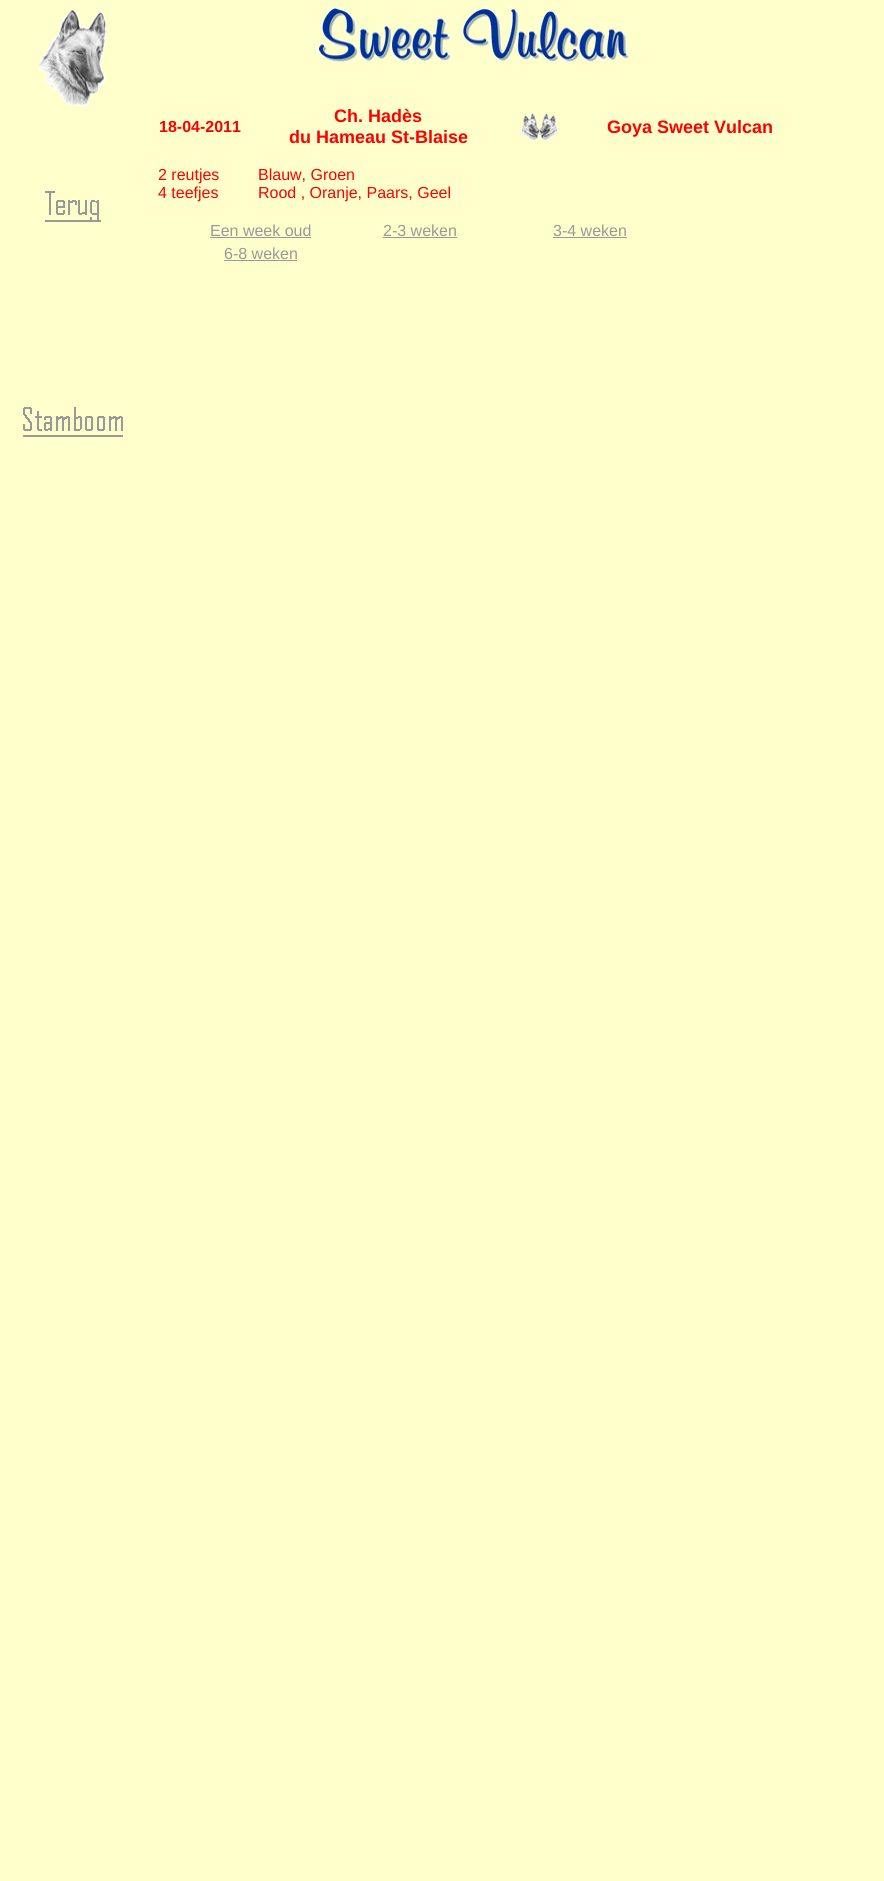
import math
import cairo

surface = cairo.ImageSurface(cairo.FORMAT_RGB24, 884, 1881)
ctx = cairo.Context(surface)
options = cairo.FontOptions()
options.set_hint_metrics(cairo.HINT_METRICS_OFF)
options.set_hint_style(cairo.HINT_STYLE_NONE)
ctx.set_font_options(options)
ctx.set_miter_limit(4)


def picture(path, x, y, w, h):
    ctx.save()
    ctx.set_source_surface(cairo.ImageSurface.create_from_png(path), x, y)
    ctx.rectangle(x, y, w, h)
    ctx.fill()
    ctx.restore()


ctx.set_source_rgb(1, 1, 0.8)
ctx.paint()
picture("img1.png", 39, 10, 67, 96)
picture("img2.png", 319, 8, 310, 54)
picture("img3.png", 45, 191, 56, 31)
picture("img4.png", 23, 407, 100, 30)
ctx.select_font_face("Liberation Sans", cairo.FONT_SLANT_NORMAL, cairo.FONT_WEIGHT_BOLD)
ctx.set_font_size(16)
ctx.set_source_rgb(1, 0, 0)
ctx.move_to(159, 132)
ctx.show_text("18-04-2011")
ctx.set_font_size(18)
ctx.move_to(334, 122)
ctx.show_text("Ch. Hadès")
ctx.move_to(289, 143)
ctx.show_text("du Hameau St-Blaise")
picture("img5.png", 521, 113, 37, 28)
ctx.move_to(607, 133)
ctx.show_text("Goya Sweet Vulcan")
ctx.select_font_face("Liberation Sans")
ctx.set_font_size(16)
ctx.move_to(158, 180)
ctx.show_text("2 reutjes")
ctx.move_to(258, 180)
ctx.show_text("Blauw, Groen")
ctx.move_to(158, 198)
ctx.show_text("4 teefjes")
ctx.move_to(258, 198)
ctx.show_text("Rood , Oranje, Paars, Geel")
ctx.set_source_rgb(0.6, 0.6, 0.6)
ctx.move_to(210, 236)
ctx.show_text("Een week oud")
ctx.rectangle(210, 237, 101, 1)
ctx.fill()
ctx.move_to(383, 236)
ctx.show_text("2-3 weken")
ctx.rectangle(383, 237, 74, 1)
ctx.fill()
ctx.move_to(553, 236)
ctx.show_text("3-4 weken")
ctx.rectangle(553, 237, 74, 1)
ctx.fill()
ctx.move_to(224, 259)
ctx.show_text("6-8 weken")
ctx.rectangle(224, 260, 73, 1)
ctx.fill()
surface.write_to_png("page.png")
